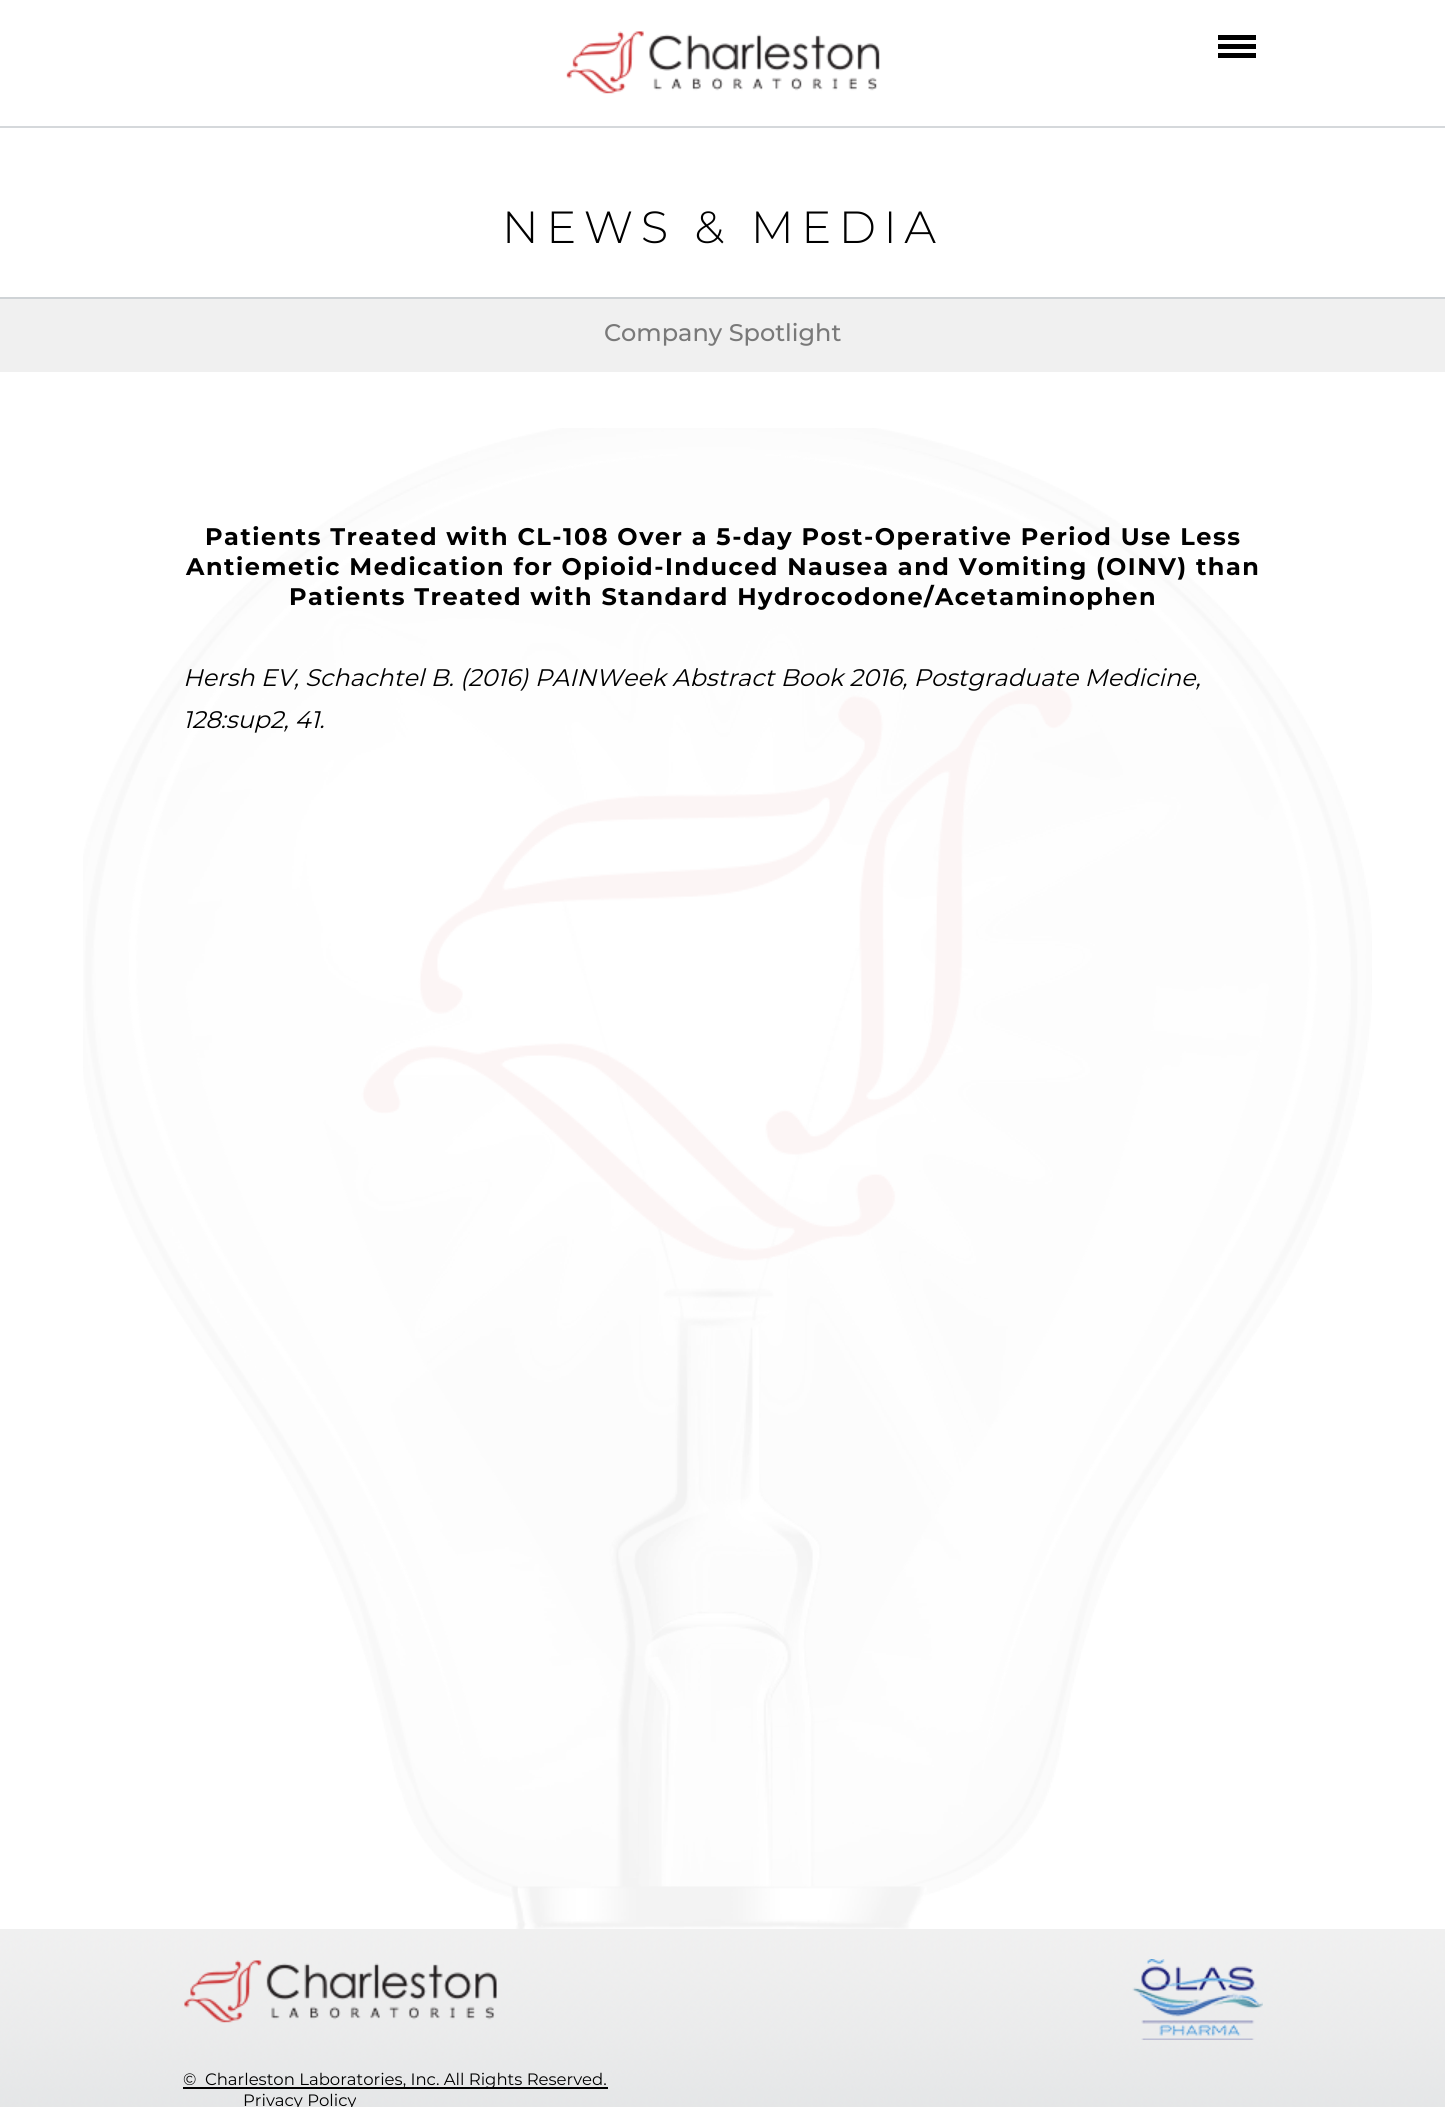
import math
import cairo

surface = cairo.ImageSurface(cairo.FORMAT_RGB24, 1445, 2107)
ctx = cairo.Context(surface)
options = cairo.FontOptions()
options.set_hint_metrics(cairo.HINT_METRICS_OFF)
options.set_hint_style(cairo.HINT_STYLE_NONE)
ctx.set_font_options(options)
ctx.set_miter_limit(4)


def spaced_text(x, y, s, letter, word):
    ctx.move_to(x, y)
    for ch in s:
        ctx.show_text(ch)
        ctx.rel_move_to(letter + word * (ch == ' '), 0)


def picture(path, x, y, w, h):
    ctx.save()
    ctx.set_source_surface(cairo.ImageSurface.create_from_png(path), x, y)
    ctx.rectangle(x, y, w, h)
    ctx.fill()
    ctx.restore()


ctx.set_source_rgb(1, 1, 1)
ctx.paint()
picture("img1.png", 83, 428, 1289, 1501)
picture("img2.png", 566, 31, 314, 63)
ctx.set_source_rgb(0, 0, 0)
ctx.rectangle(1218, 35, 38, 5)
ctx.fill()
ctx.rectangle(1218, 44, 38, 5)
ctx.fill()
ctx.rectangle(1218, 53, 38, 5)
ctx.fill()
ctx.set_source_rgb(0.835, 0.847, 0.859)
ctx.rectangle(0, 126, 1445, 2)
ctx.fill()
ctx.select_font_face("Montserrat Light")
ctx.set_font_size(45)
ctx.set_source_rgb(0, 0, 0)
spaced_text(502, 243, "NEWS & MEDIA", 7.5, 0)
ctx.set_source_rgb(0.941, 0.941, 0.941)
ctx.rectangle(0, 299, 1445, 73)
ctx.fill()
ctx.set_source_rgb(0.812, 0.827, 0.839)
ctx.rectangle(0, 297, 1445, 2)
ctx.fill()
ctx.select_font_face("Montserrat Medium")
ctx.set_font_size(24)
ctx.set_source_rgb(0.475, 0.475, 0.475)
ctx.move_to(604, 341)
ctx.show_text("Company Spotlight")
ctx.select_font_face("Montserrat", cairo.FONT_SLANT_NORMAL, cairo.FONT_WEIGHT_BOLD)
ctx.set_source_rgb(0, 0, 0)
spaced_text(205, 545, "Patients Treated with CL-108 Over a 5-day Post-Operative Period Use Less", 1.5, 0)
spaced_text(186, 575, "Antiemetic Medication for Opioid-Induced Nausea and Vomiting (OINV) than", 1.5, 0)
spaced_text(289, 605, "Patients Treated with Standard Hydrocodone/Acetaminophen", 1.5, 0)
ctx.select_font_face("Montserrat", cairo.FONT_SLANT_ITALIC)
ctx.move_to(183, 686)
ctx.show_text("Hersh EV, Schachtel B. (2016) PAINWeek Abstract Book 2016, Postgraduate Medicine,")
ctx.move_to(183, 728)
ctx.show_text("128:sup2, 41.")
picture("img3.png", 0, 1929, 1445, 178)
picture("img4.png", 184, 1960, 313, 63)
picture("img5.png", 1132, 1959, 131, 81)
ctx.select_font_face("Montserrat")
ctx.set_font_size(16.5)
ctx.move_to(183, 2085)
ctx.show_text("©")
ctx.rectangle(183, 2087, 425, 2)
ctx.fill()
ctx.move_to(205, 2085)
ctx.show_text("Charleston Laboratories, Inc. All Rights Reserved.")
ctx.move_to(243, 2106)
ctx.show_text("Privacy Policy")
surface.write_to_png("page.png")
